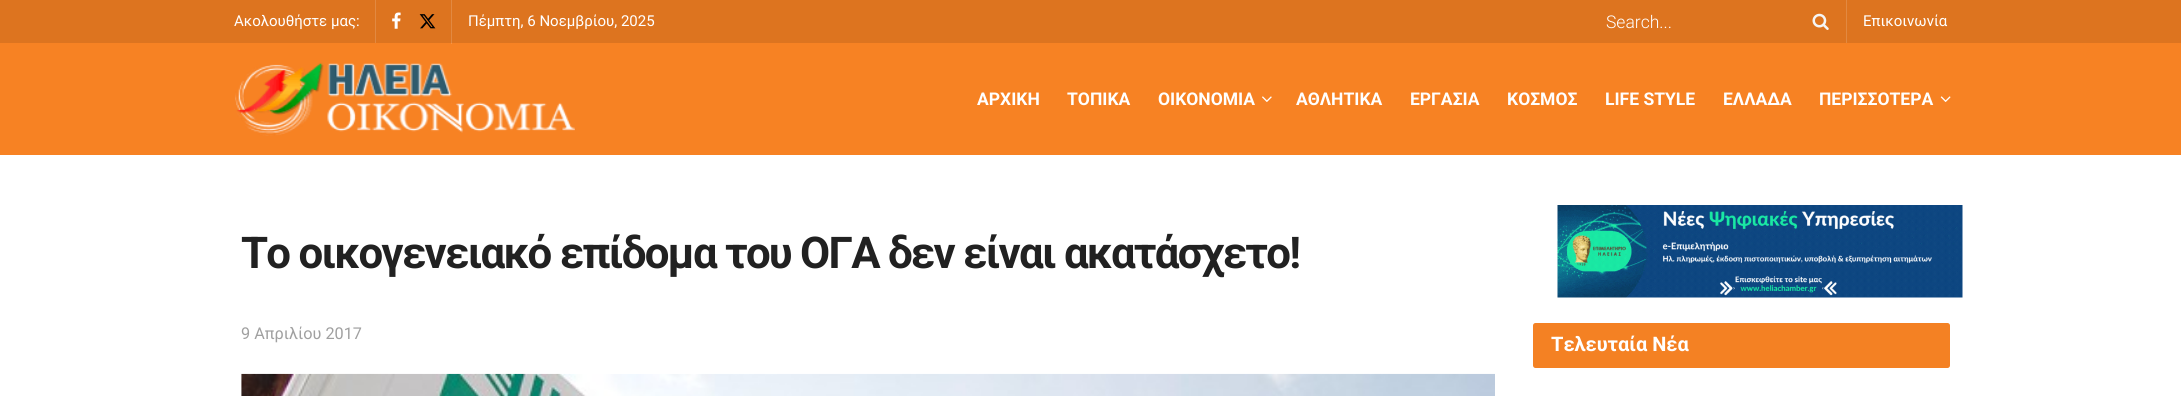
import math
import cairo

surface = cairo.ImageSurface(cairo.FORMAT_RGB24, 2181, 396)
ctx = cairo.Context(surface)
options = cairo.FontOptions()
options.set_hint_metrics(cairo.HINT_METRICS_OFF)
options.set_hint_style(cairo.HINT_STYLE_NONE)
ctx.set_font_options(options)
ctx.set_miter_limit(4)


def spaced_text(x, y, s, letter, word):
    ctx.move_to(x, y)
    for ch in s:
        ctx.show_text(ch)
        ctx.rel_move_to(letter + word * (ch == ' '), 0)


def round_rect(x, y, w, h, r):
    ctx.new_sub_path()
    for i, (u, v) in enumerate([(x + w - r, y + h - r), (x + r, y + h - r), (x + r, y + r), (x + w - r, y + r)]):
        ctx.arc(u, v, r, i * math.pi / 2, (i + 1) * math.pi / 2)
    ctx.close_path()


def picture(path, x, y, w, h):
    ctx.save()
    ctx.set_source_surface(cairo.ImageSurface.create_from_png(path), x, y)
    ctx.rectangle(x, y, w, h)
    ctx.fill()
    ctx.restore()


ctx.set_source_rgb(1, 1, 1)
ctx.paint()
ctx.set_source_rgb(0.867, 0.455, 0.122)
ctx.rectangle(0, 0, 2181, 43)
ctx.fill()
ctx.set_source_rgb(0.886, 0.537, 0.255)
ctx.rectangle(451, 0, 1, 43)
ctx.fill()
ctx.rectangle(375, 0, 1, 43)
ctx.fill()
ctx.select_font_face("Roboto")
ctx.set_font_size(15)
ctx.set_source_rgb(1, 1, 1)
ctx.move_to(234, 26)
ctx.show_text("Ακολουθήστε μας:")
picture("img1.png", 392, 12, 9, 17)
picture("img2.png", 419, 14, 17, 15)
ctx.move_to(468, 26)
ctx.show_text("Πέμπτη, 6 Νοεμβρίου, 2025")
ctx.set_source_rgb(0.886, 0.537, 0.255)
ctx.rectangle(1846, 0, 1, 43)
ctx.fill()
ctx.select_font_face("Roboto Light")
ctx.set_font_size(17.5)
ctx.set_source_rgb(1, 1, 1)
ctx.move_to(1606, 28)
ctx.show_text("Search...")
picture("img3.png", 1812, 13, 17, 17)
ctx.select_font_face("Roboto")
ctx.set_font_size(15)
ctx.move_to(1863, 26)
ctx.show_text("Επικοινωνία")
ctx.set_source_rgb(0.965, 0.51, 0.137)
ctx.rectangle(0, 43, 2181, 112)
ctx.fill()
ctx.set_source_rgb(0.969, 0.584, 0.267)
ctx.rectangle(451, 43, 1, 1)
ctx.fill()
picture("img4.png", 235, 62, 340, 74)
ctx.select_font_face("Roboto", cairo.FONT_SLANT_NORMAL, cairo.FONT_WEIGHT_BOLD)
ctx.set_font_size(17.5)
ctx.set_source_rgb(1, 1, 1)
ctx.move_to(977, 105)
ctx.show_text("ΑΡΧΙΚΗ")
ctx.move_to(1067, 105)
ctx.show_text("ΤΟΠΙΚΑ")
ctx.move_to(1158, 105)
ctx.show_text("ΟΙΚΟΝΟΜΙΑ")
picture("img5.png", 1262, 96, 10, 6)
ctx.move_to(1296, 105)
ctx.show_text("ΑΘΛΗΤΙΚΑ")
ctx.move_to(1410, 105)
ctx.show_text("ΕΡΓΑΣΙΑ")
ctx.move_to(1507, 105)
ctx.show_text("ΚΟΣΜΟΣ")
ctx.move_to(1605, 105)
ctx.show_text("LIFE STYLE")
ctx.move_to(1723, 105)
ctx.show_text("ΕΛΛΑΔΑ")
ctx.move_to(1819, 105)
ctx.show_text("ΠΕΡΙΣΣΟΤΕΡΑ")
picture("img6.png", 1940, 96, 11, 6)
ctx.set_font_size(43.75)
ctx.set_source_rgb(0.129, 0.129, 0.129)
spaced_text(241, 268, "Το οικογενειακό επίδομα του ΟΓΑ δεν είναι ακατάσχετο!", -1.75, 0)
ctx.select_font_face("Roboto")
ctx.set_font_size(16.25)
ctx.set_source_rgb(0.627, 0.627, 0.627)
ctx.move_to(241, 339)
ctx.show_text("9 Απριλίου 2017")
ctx.set_source_rgb(0.969, 0.969, 0.969)
ctx.rectangle(241, 374, 1, 22)
ctx.fill()
picture("img7.png", 241, 373, 1254, 23)
picture("img8.png", 1557, 205, 406, 93)
ctx.set_source_rgb(0.957, 0.506, 0.137)
round_rect(1533, 323, 417, 45, 2.5)
ctx.fill()
ctx.select_font_face("Roboto", cairo.FONT_SLANT_NORMAL, cairo.FONT_WEIGHT_BOLD)
ctx.set_font_size(20)
ctx.set_source_rgb(1, 1, 1)
ctx.move_to(1551, 351)
ctx.show_text("Τελευταία Νέα")
surface.write_to_png("page.png")
